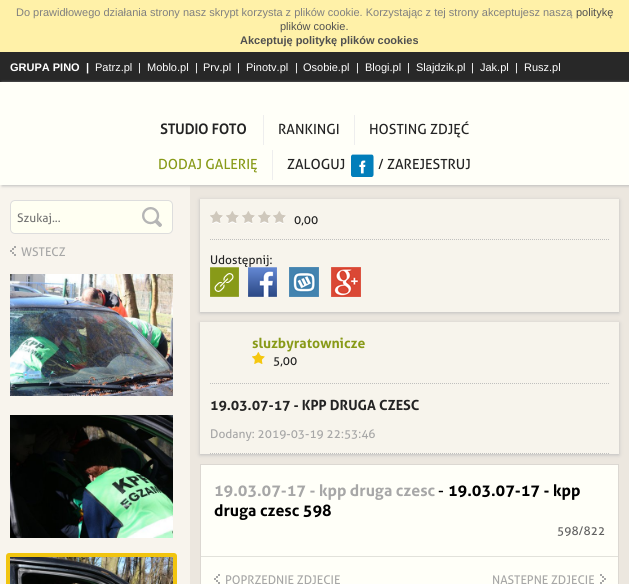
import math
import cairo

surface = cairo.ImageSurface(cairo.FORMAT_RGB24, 629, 584)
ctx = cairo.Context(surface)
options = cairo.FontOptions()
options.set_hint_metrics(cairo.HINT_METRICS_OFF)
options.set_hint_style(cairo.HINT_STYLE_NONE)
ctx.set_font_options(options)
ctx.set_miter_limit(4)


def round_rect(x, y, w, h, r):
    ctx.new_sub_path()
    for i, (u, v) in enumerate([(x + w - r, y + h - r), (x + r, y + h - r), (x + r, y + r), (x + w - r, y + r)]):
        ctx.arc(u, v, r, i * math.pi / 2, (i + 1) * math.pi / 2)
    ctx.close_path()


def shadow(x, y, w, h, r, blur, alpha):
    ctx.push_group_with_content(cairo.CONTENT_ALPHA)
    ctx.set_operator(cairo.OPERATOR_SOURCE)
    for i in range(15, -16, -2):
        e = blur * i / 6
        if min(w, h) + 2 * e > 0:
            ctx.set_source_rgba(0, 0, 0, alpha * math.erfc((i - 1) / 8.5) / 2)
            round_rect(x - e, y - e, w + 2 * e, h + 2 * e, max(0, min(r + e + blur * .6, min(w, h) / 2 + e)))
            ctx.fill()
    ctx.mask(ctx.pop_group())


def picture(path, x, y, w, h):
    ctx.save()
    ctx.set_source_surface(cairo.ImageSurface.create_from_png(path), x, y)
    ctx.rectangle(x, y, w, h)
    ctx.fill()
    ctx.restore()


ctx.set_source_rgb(0.157, 0.157, 0.157)
ctx.paint()
ctx.set_source_rgb(1, 0.945, 0.659)
ctx.rectangle(0, 0, 629, 52)
ctx.fill()
ctx.select_font_face("Liberation Sans")
ctx.set_font_size(11)
ctx.set_source_rgb(0.502, 0.502, 0.502)
ctx.move_to(16, 16)
ctx.show_text("Do prawidłowego działania strony nasz skrypt korzysta z plików cookie. Korzystając z tej strony akceptujesz naszą")
ctx.set_source_rgb(0.314, 0.314, 0.314)
ctx.move_to(576, 16)
ctx.show_text("politykę")
ctx.move_to(280, 30)
ctx.show_text("plików cookie.")
ctx.select_font_face("Liberation Sans", cairo.FONT_SLANT_NORMAL, cairo.FONT_WEIGHT_BOLD)
ctx.move_to(240, 44)
ctx.show_text("Akceptuję politykę plików cookies")
ctx.set_source_rgb(1, 1, 1)
ctx.move_to(10, 71)
ctx.show_text("GRUPA PINO")
ctx.move_to(86, 71)
ctx.show_text("|")
ctx.select_font_face("Liberation Sans")
ctx.move_to(95, 71)
ctx.show_text("Patrz.pl")
ctx.move_to(138, 71)
ctx.show_text("|")
ctx.move_to(147, 71)
ctx.show_text("Moblo.pl")
ctx.move_to(195, 71)
ctx.show_text("|")
ctx.move_to(203, 71)
ctx.show_text("Prv.pl")
ctx.move_to(237, 71)
ctx.show_text("|")
ctx.move_to(246, 71)
ctx.show_text("Pinotv.pl")
ctx.move_to(295, 71)
ctx.show_text("|")
ctx.move_to(303, 71)
ctx.show_text("Osobie.pl")
ctx.move_to(356, 71)
ctx.show_text("|")
ctx.move_to(365, 71)
ctx.show_text("Blogi.pl")
ctx.move_to(407, 71)
ctx.show_text("|")
ctx.move_to(416, 71)
ctx.show_text("Slajdzik.pl")
ctx.move_to(471, 71)
ctx.show_text("|")
ctx.move_to(480, 71)
ctx.show_text("Jak.pl")
ctx.move_to(515, 71)
ctx.show_text("|")
ctx.move_to(524, 71)
ctx.show_text("Rusz.pl")
ctx.set_source_rgb(0.969, 0.957, 0.929)
ctx.rectangle(0, 185, 190, 399)
ctx.fill()
ctx.set_source_rgb(0.922, 0.906, 0.875)
ctx.rectangle(190, 185, 439, 399)
ctx.fill()
ctx.set_source_rgb(0.741, 0.741, 0.741)
shadow(2, 83, 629, 103, 0, 1.5, 1)
ctx.set_source_rgb(1, 1, 0.969)
ctx.rectangle(0, 82, 629, 103)
ctx.fill()
ctx.select_font_face("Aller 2", cairo.FONT_SLANT_NORMAL, cairo.FONT_WEIGHT_BOLD)
ctx.set_font_size(14)
ctx.set_source_rgb(0.141, 0.141, 0.141)
ctx.move_to(160, 134)
ctx.show_text("STUDIO FOTO")
ctx.set_source_rgb(0.933, 0.933, 0.933)
ctx.rectangle(263, 115, 1, 30)
ctx.fill()
ctx.select_font_face("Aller")
ctx.set_source_rgb(0.141, 0.141, 0.141)
ctx.move_to(278, 134)
ctx.show_text("RANKINGI")
ctx.set_source_rgb(0.933, 0.933, 0.933)
ctx.rectangle(354, 115, 1, 30)
ctx.fill()
ctx.set_source_rgb(0.141, 0.141, 0.141)
ctx.move_to(369, 134)
ctx.show_text("HOSTING ZDJĘĆ")
ctx.set_source_rgb(0.533, 0.604, 0.094)
ctx.move_to(158, 169)
ctx.show_text("DODAJ GALERIĘ")
ctx.set_source_rgb(0.933, 0.933, 0.933)
ctx.rectangle(272, 150, 1, 30)
ctx.fill()
ctx.set_source_rgb(0.141, 0.141, 0.141)
ctx.move_to(287, 169)
ctx.show_text("ZALOGUJ")
picture("img1.png", 351, 154, 23, 23)
ctx.move_to(378, 169)
ctx.show_text("/ ZAREJESTRUJ")
ctx.set_source_rgb(1, 1, 0.949)
round_rect(10.5, 200.5, 162, 33, 4.5)
ctx.fill_preserve()
ctx.set_source_rgb(0.867, 0.867, 0.867)
ctx.set_line_width(1)
ctx.stroke()
ctx.set_font_size(12)
ctx.set_source_rgb(0.459, 0.459, 0.459)
ctx.move_to(17, 222)
ctx.show_text("Szukaj...")
picture("img2.png", 142, 207, 20, 20)
picture("img3.png", 10, 246, 6, 10)
ctx.set_source_rgb(0.655, 0.655, 0.655)
ctx.move_to(21, 256)
ctx.show_text("WSTECZ")
picture("img4.png", 10, 274, 163, 122)
picture("img5.png", 10, 415, 163, 123)
round_rect(8, 555, 167, 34, 1)
ctx.set_source_rgb(0.945, 0.769, 0.059)
ctx.set_line_width(4)
ctx.stroke()
picture("img6.png", 10, 557, 163, 27)
ctx.set_source_rgb(0.741, 0.741, 0.741)
shadow(200, 200, 419, 113, 0, 2, 1)
ctx.set_source_rgb(0.965, 0.957, 0.925)
ctx.rectangle(200, 199, 419, 113)
ctx.fill()
ctx.new_path()
ctx.move_to(210, 239.5)
ctx.line_to(609, 239.5)
ctx.set_source_rgb(0.753, 0.753, 0.745)
ctx.set_line_width(1)
ctx.set_dash([1, 1])
ctx.stroke()
picture("img7.png", 210, 211, 13, 13)
picture("img7.png", 226, 211, 13, 13)
picture("img7.png", 242, 211, 13, 13)
picture("img7.png", 258, 211, 13, 13)
picture("img7.png", 273, 211, 13, 13)
ctx.set_source_rgb(0.141, 0.141, 0.141)
ctx.move_to(294, 224)
ctx.show_text("0,00")
ctx.move_to(210, 264)
ctx.show_text("Udostępnij:")
picture("img8.png", 210, 267, 29, 30)
picture("img9.png", 248, 267, 29, 30)
picture("img10.png", 289, 267, 30, 30)
picture("img11.png", 331, 267, 30, 30)
ctx.set_source_rgb(0.741, 0.741, 0.741)
shadow(200, 323, 419, 132, 0, 2, 1)
ctx.set_source_rgb(0.965, 0.957, 0.925)
ctx.rectangle(200, 322, 419, 132)
ctx.fill()
ctx.new_path()
ctx.move_to(210, 383.5)
ctx.line_to(609, 383.5)
ctx.set_source_rgb(0.753, 0.753, 0.745)
ctx.stroke()
ctx.select_font_face("Aller", cairo.FONT_SLANT_NORMAL, cairo.FONT_WEIGHT_BOLD)
ctx.set_font_size(14)
ctx.set_source_rgb(0.533, 0.604, 0.094)
ctx.move_to(252, 348)
ctx.show_text("sluzbyratownicze")
picture("img12.png", 252, 352, 13, 12)
ctx.select_font_face("Aller")
ctx.set_font_size(12)
ctx.set_source_rgb(0.141, 0.141, 0.141)
ctx.move_to(273, 365)
ctx.show_text("5,00")
ctx.new_path()
ctx.move_to(210, 453.5)
ctx.line_to(609, 453.5)
ctx.set_source_rgb(0.753, 0.753, 0.745)
ctx.stroke()
ctx.select_font_face("Aller", cairo.FONT_SLANT_NORMAL, cairo.FONT_WEIGHT_BOLD)
ctx.set_font_size(14)
ctx.set_source_rgb(0.141, 0.141, 0.141)
ctx.move_to(210, 410)
ctx.show_text("19.03.07-17 - KPP DRUGA CZESC")
ctx.select_font_face("Aller")
ctx.set_font_size(12)
ctx.set_source_rgb(0.655, 0.655, 0.655)
ctx.move_to(210, 438)
ctx.show_text("Dodany: 2019-03-19 22:53:46")
ctx.set_source_rgb(1, 1, 0.969)
ctx.rectangle(200.5, 464.5, 418, 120)
ctx.fill_preserve()
ctx.set_source_rgb(0.863, 0.847, 0.824)
ctx.set_dash([])
ctx.stroke()
ctx.set_source_rgb(0.886, 0.886, 0.859)
ctx.rectangle(201, 556, 417, 1)
ctx.fill()
ctx.select_font_face("Aller", cairo.FONT_SLANT_NORMAL, cairo.FONT_WEIGHT_BOLD)
ctx.set_font_size(16)
ctx.set_source_rgb(0.655, 0.655, 0.655)
ctx.move_to(214, 496)
ctx.show_text("19.03.07-17 - kpp druga czesc")
ctx.select_font_face("Aller")
ctx.set_source_rgb(0, 0, 0)
ctx.move_to(438, 496)
ctx.show_text("-")
ctx.select_font_face("Aller", cairo.FONT_SLANT_NORMAL, cairo.FONT_WEIGHT_BOLD)
ctx.move_to(448, 496)
ctx.show_text("19.03.07-17 - kpp")
ctx.move_to(214, 516)
ctx.show_text("druga czesc 598")
ctx.select_font_face("Aller")
ctx.set_font_size(12)
ctx.set_source_rgb(0.38, 0.38, 0.38)
ctx.move_to(557, 535)
ctx.show_text("598/822")
picture("img13.png", 214, 574, 6, 10)
ctx.set_source_rgb(0.655, 0.655, 0.655)
ctx.move_to(225, 584)
ctx.show_text("POPRZEDNIE ZDJĘCIE")
ctx.move_to(492, 584)
ctx.show_text("NASTĘPNE ZDJĘCIE")
picture("img14.png", 600, 574, 6, 10)
surface.write_to_png("page.png")
